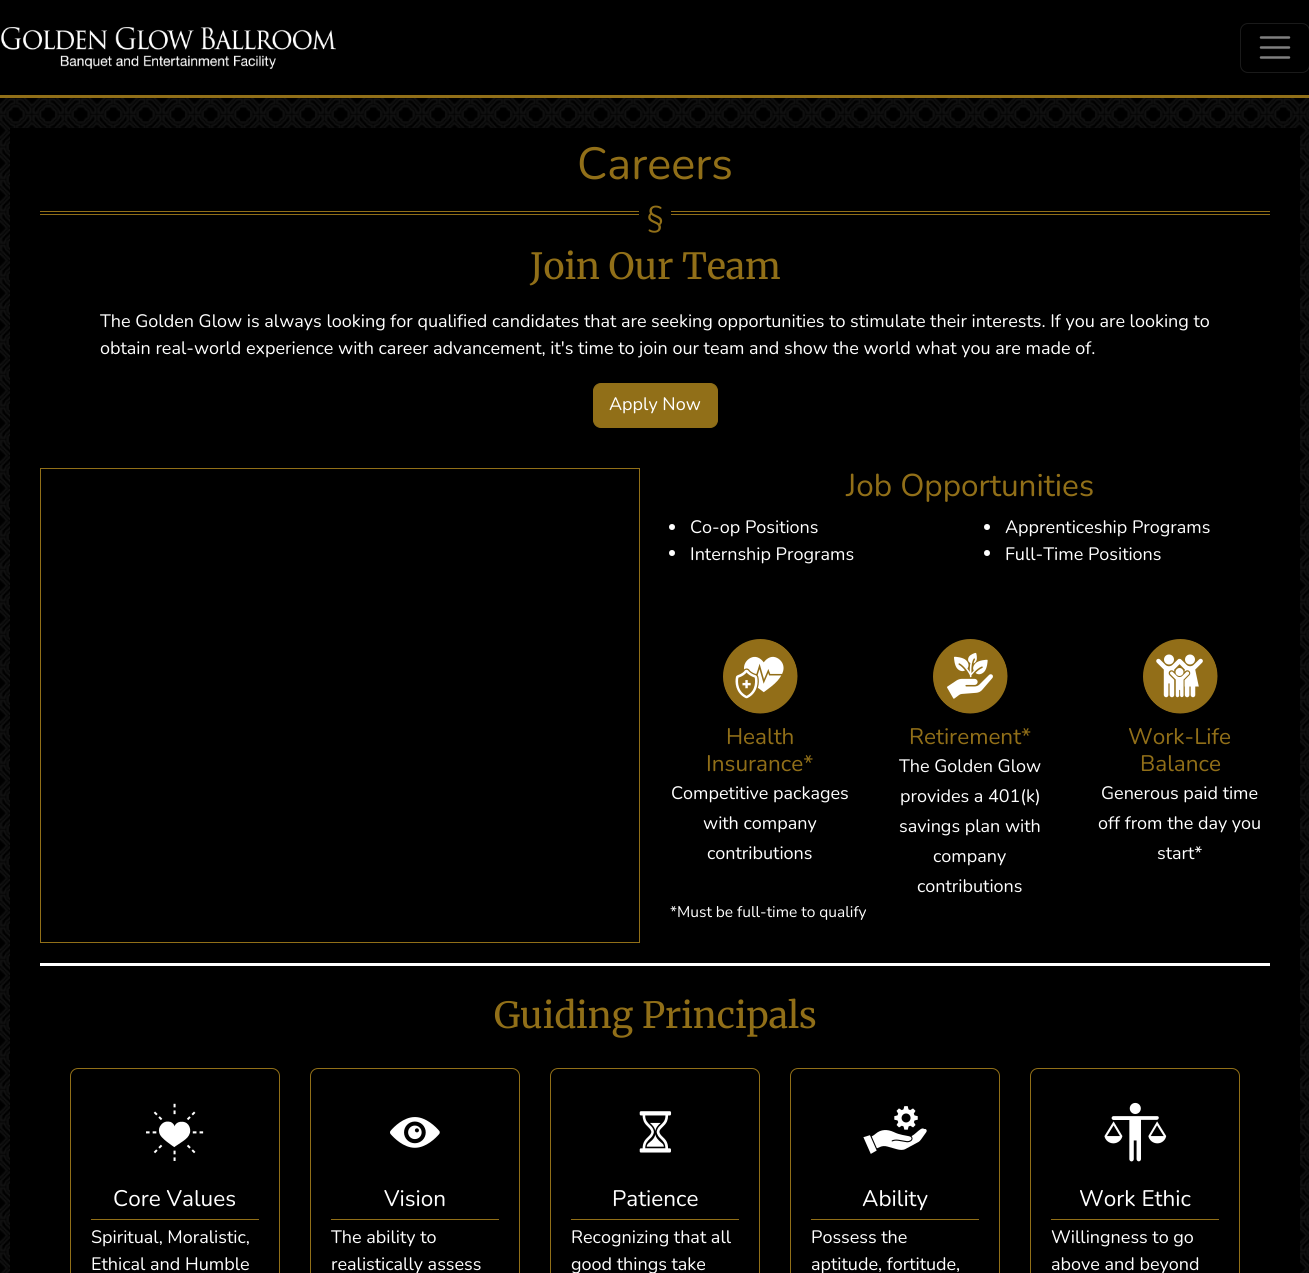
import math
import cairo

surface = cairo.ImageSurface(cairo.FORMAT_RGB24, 1309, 1273)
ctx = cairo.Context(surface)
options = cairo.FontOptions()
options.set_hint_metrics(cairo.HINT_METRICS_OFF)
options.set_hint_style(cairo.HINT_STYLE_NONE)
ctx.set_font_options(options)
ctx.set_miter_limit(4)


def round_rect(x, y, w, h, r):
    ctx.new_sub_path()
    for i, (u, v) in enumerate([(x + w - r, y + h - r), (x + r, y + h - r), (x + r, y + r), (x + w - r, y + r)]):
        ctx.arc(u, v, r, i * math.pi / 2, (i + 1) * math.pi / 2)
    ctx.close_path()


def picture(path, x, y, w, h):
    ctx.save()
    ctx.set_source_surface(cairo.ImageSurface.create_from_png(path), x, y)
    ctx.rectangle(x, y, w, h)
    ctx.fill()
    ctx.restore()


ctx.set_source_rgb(1, 1, 1)
ctx.paint()
ctx.set_source_rgb(0, 0, 0)
ctx.rectangle(0, 0, 1309, 95)
ctx.fill()
ctx.set_source_rgb(0.569, 0.435, 0.094)
ctx.rectangle(0, 95, 1309, 3)
ctx.fill()
picture("img1.png", 1, 27, 335, 42)
round_rect(1240.5, 23.5, 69, 49, 7.5)
ctx.set_source_rgb(0.102, 0.102, 0.102)
ctx.set_line_width(1)
ctx.stroke()
ctx.new_path()
ctx.move_to(1261, 37.5)
ctx.line_to(1289, 37.5)
ctx.move_to(1261, 47.5)
ctx.line_to(1289, 47.5)
ctx.move_to(1261, 57.5)
ctx.line_to(1289, 57.5)
ctx.set_source_rgb(0.502, 0.502, 0.502)
ctx.set_line_width(2.5)
ctx.set_line_cap(cairo.LINE_CAP_ROUND)
ctx.stroke()
picture("img2.png", 0, 98, 1309, 1175)
ctx.set_source_rgb(0, 0, 0)
ctx.rectangle(10, 128, 1290, 1145)
ctx.fill()
ctx.select_font_face("Nunito ExtraLight")
ctx.set_font_size(45)
ctx.set_source_rgb(0.569, 0.435, 0.094)
ctx.move_to(577, 179)
ctx.show_text("Careers")
ctx.rectangle(40, 211, 1230, 1)
ctx.fill()
ctx.rectangle(40, 214, 1230, 1)
ctx.fill()
ctx.set_source_rgb(0, 0, 0)
ctx.rectangle(639, 211, 32, 4)
ctx.fill()
ctx.set_font_size(30)
ctx.set_source_rgb(0.569, 0.435, 0.094)
ctx.move_to(647, 227)
ctx.show_text("§")
ctx.select_font_face("Merriweather Light")
ctx.set_font_size(36)
ctx.move_to(530, 279)
ctx.show_text("Join Our Team")
ctx.select_font_face("Nunito ExtraLight")
ctx.set_font_size(18)
ctx.set_source_rgb(1, 1, 1)
ctx.move_to(100, 327)
ctx.show_text("The Golden Glow is always looking for qualified candidates that are seeking opportunities to stimulate their interests. If you are looking to")
ctx.move_to(100, 354)
ctx.show_text("obtain real-world experience with career advancement, it's time to join our team and show the world what you are made of.")
ctx.set_source_rgb(0.569, 0.435, 0.094)
round_rect(593.5, 383.5, 124, 44, 7.5)
ctx.fill_preserve()
ctx.set_line_width(1)
ctx.set_line_cap(cairo.LINE_CAP_BUTT)
ctx.stroke()
ctx.set_source_rgb(1, 1, 1)
ctx.move_to(609, 410)
ctx.show_text("Apply Now")
ctx.rectangle(40.5, 468.5, 599, 474)
ctx.set_source_rgb(0.569, 0.435, 0.094)
ctx.stroke()
ctx.set_font_size(31.5)
ctx.move_to(846, 496)
ctx.show_text("Job Opportunities")
ctx.set_source_rgb(1, 1, 1)
ctx.new_path()
ctx.arc(672, 527, 3, 0, 2 * math.pi)
ctx.fill()
ctx.set_font_size(18)
ctx.move_to(690, 533)
ctx.show_text("Co-op Positions")
ctx.new_path()
ctx.arc(672, 553, 3, 0, 2 * math.pi)
ctx.fill()
ctx.move_to(690, 560)
ctx.show_text("Internship Programs")
ctx.new_path()
ctx.arc(987, 527, 3, 0, 2 * math.pi)
ctx.fill()
ctx.move_to(1005, 533)
ctx.show_text("Apprenticeship Programs")
ctx.new_path()
ctx.arc(987, 553, 3, 0, 2 * math.pi)
ctx.fill()
ctx.move_to(1005, 560)
ctx.show_text("Full-Time Positions")
picture("img3.png", 723, 639, 75, 75)
ctx.set_font_size(22.5)
ctx.set_source_rgb(0.569, 0.435, 0.094)
ctx.move_to(726, 744)
ctx.show_text("Health")
ctx.move_to(706, 771)
ctx.show_text("Insurance*")
ctx.set_font_size(18)
ctx.set_source_rgb(1, 1, 1)
ctx.move_to(671, 799)
ctx.show_text("Competitive packages")
ctx.move_to(703, 829)
ctx.show_text("with company")
ctx.move_to(707, 859)
ctx.show_text("contributions")
picture("img4.png", 933, 639, 75, 75)
ctx.set_font_size(22.5)
ctx.set_source_rgb(0.569, 0.435, 0.094)
ctx.move_to(909, 744)
ctx.show_text("Retirement*")
ctx.set_font_size(18)
ctx.set_source_rgb(1, 1, 1)
ctx.move_to(899, 772)
ctx.show_text("The Golden Glow")
ctx.move_to(900, 802)
ctx.show_text("provides a 401(k)")
ctx.move_to(899, 832)
ctx.show_text("savings plan with")
ctx.move_to(933, 862)
ctx.show_text("company")
ctx.move_to(917, 892)
ctx.show_text("contributions")
picture("img5.png", 1143, 639, 75, 75)
ctx.set_font_size(22.5)
ctx.set_source_rgb(0.569, 0.435, 0.094)
ctx.move_to(1128, 744)
ctx.show_text("Work-Life")
ctx.move_to(1140, 771)
ctx.show_text("Balance")
ctx.set_font_size(18)
ctx.set_source_rgb(1, 1, 1)
ctx.move_to(1101, 799)
ctx.show_text("Generous paid time")
ctx.move_to(1098, 829)
ctx.show_text("off from the day you")
ctx.move_to(1157, 859)
ctx.show_text("start*")
ctx.set_font_size(15.5)
ctx.move_to(670, 917)
ctx.show_text("*Must be full-time to qualify")
ctx.rectangle(40, 963, 1230, 3)
ctx.fill()
ctx.select_font_face("Merriweather Light")
ctx.set_font_size(36)
ctx.set_source_rgb(0.569, 0.435, 0.094)
ctx.move_to(494, 1028)
ctx.show_text("Guiding Principals")
round_rect(70.5, 1068.5, 209, 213, 7.5)
ctx.stroke()
picture("img6.png", 146, 1103, 58, 58)
ctx.select_font_face("Nunito ExtraLight")
ctx.set_font_size(22.5)
ctx.set_source_rgb(1, 1, 1)
ctx.move_to(113, 1206)
ctx.show_text("Core Values")
ctx.set_source_rgb(0.569, 0.435, 0.094)
ctx.rectangle(91, 1219, 168, 1)
ctx.fill()
ctx.set_font_size(18)
ctx.set_source_rgb(1, 1, 1)
ctx.move_to(91, 1243)
ctx.show_text("Spiritual, Moralistic,")
ctx.move_to(91, 1270)
ctx.show_text("Ethical and Humble")
round_rect(310.5, 1068.5, 209, 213, 7.5)
ctx.set_source_rgb(0.569, 0.435, 0.094)
ctx.stroke()
picture("img7.png", 390, 1117, 50, 31)
ctx.set_font_size(22.5)
ctx.set_source_rgb(1, 1, 1)
ctx.move_to(384, 1206)
ctx.show_text("Vision")
ctx.set_source_rgb(0.569, 0.435, 0.094)
ctx.rectangle(331, 1219, 168, 1)
ctx.fill()
ctx.set_font_size(18)
ctx.set_source_rgb(1, 1, 1)
ctx.move_to(331, 1243)
ctx.show_text("The ability to")
ctx.move_to(331, 1270)
ctx.show_text("realistically assess")
round_rect(550.5, 1068.5, 209, 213, 7.5)
ctx.set_source_rgb(0.569, 0.435, 0.094)
ctx.stroke()
picture("img8.png", 639, 1111, 33, 42)
ctx.set_font_size(22.5)
ctx.set_source_rgb(1, 1, 1)
ctx.move_to(612, 1206)
ctx.show_text("Patience")
ctx.set_source_rgb(0.569, 0.435, 0.094)
ctx.rectangle(571, 1219, 168, 1)
ctx.fill()
ctx.set_font_size(18)
ctx.set_source_rgb(1, 1, 1)
ctx.move_to(571, 1243)
ctx.show_text("Recognizing that all")
ctx.move_to(571, 1270)
ctx.show_text("good things take")
round_rect(790.5, 1068.5, 209, 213, 7.5)
ctx.set_source_rgb(0.569, 0.435, 0.094)
ctx.stroke()
picture("img9.png", 863, 1106, 64, 48)
ctx.set_font_size(22.5)
ctx.set_source_rgb(1, 1, 1)
ctx.move_to(862, 1206)
ctx.show_text("Ability")
ctx.set_source_rgb(0.569, 0.435, 0.094)
ctx.rectangle(811, 1219, 168, 1)
ctx.fill()
ctx.set_font_size(18)
ctx.set_source_rgb(1, 1, 1)
ctx.move_to(811, 1243)
ctx.show_text("Possess the")
ctx.move_to(811, 1270)
ctx.show_text("aptitude, fortitude,")
round_rect(1030.5, 1068.5, 209, 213, 7.5)
ctx.set_source_rgb(0.569, 0.435, 0.094)
ctx.stroke()
picture("img10.png", 1104, 1102, 63, 60)
ctx.set_font_size(22.5)
ctx.set_source_rgb(1, 1, 1)
ctx.move_to(1079, 1206)
ctx.show_text("Work Ethic")
ctx.set_source_rgb(0.569, 0.435, 0.094)
ctx.rectangle(1051, 1219, 168, 1)
ctx.fill()
ctx.set_font_size(18)
ctx.set_source_rgb(1, 1, 1)
ctx.move_to(1051, 1243)
ctx.show_text("Willingness to go")
ctx.move_to(1051, 1270)
ctx.show_text("above and beyond")
surface.write_to_png("page.png")
